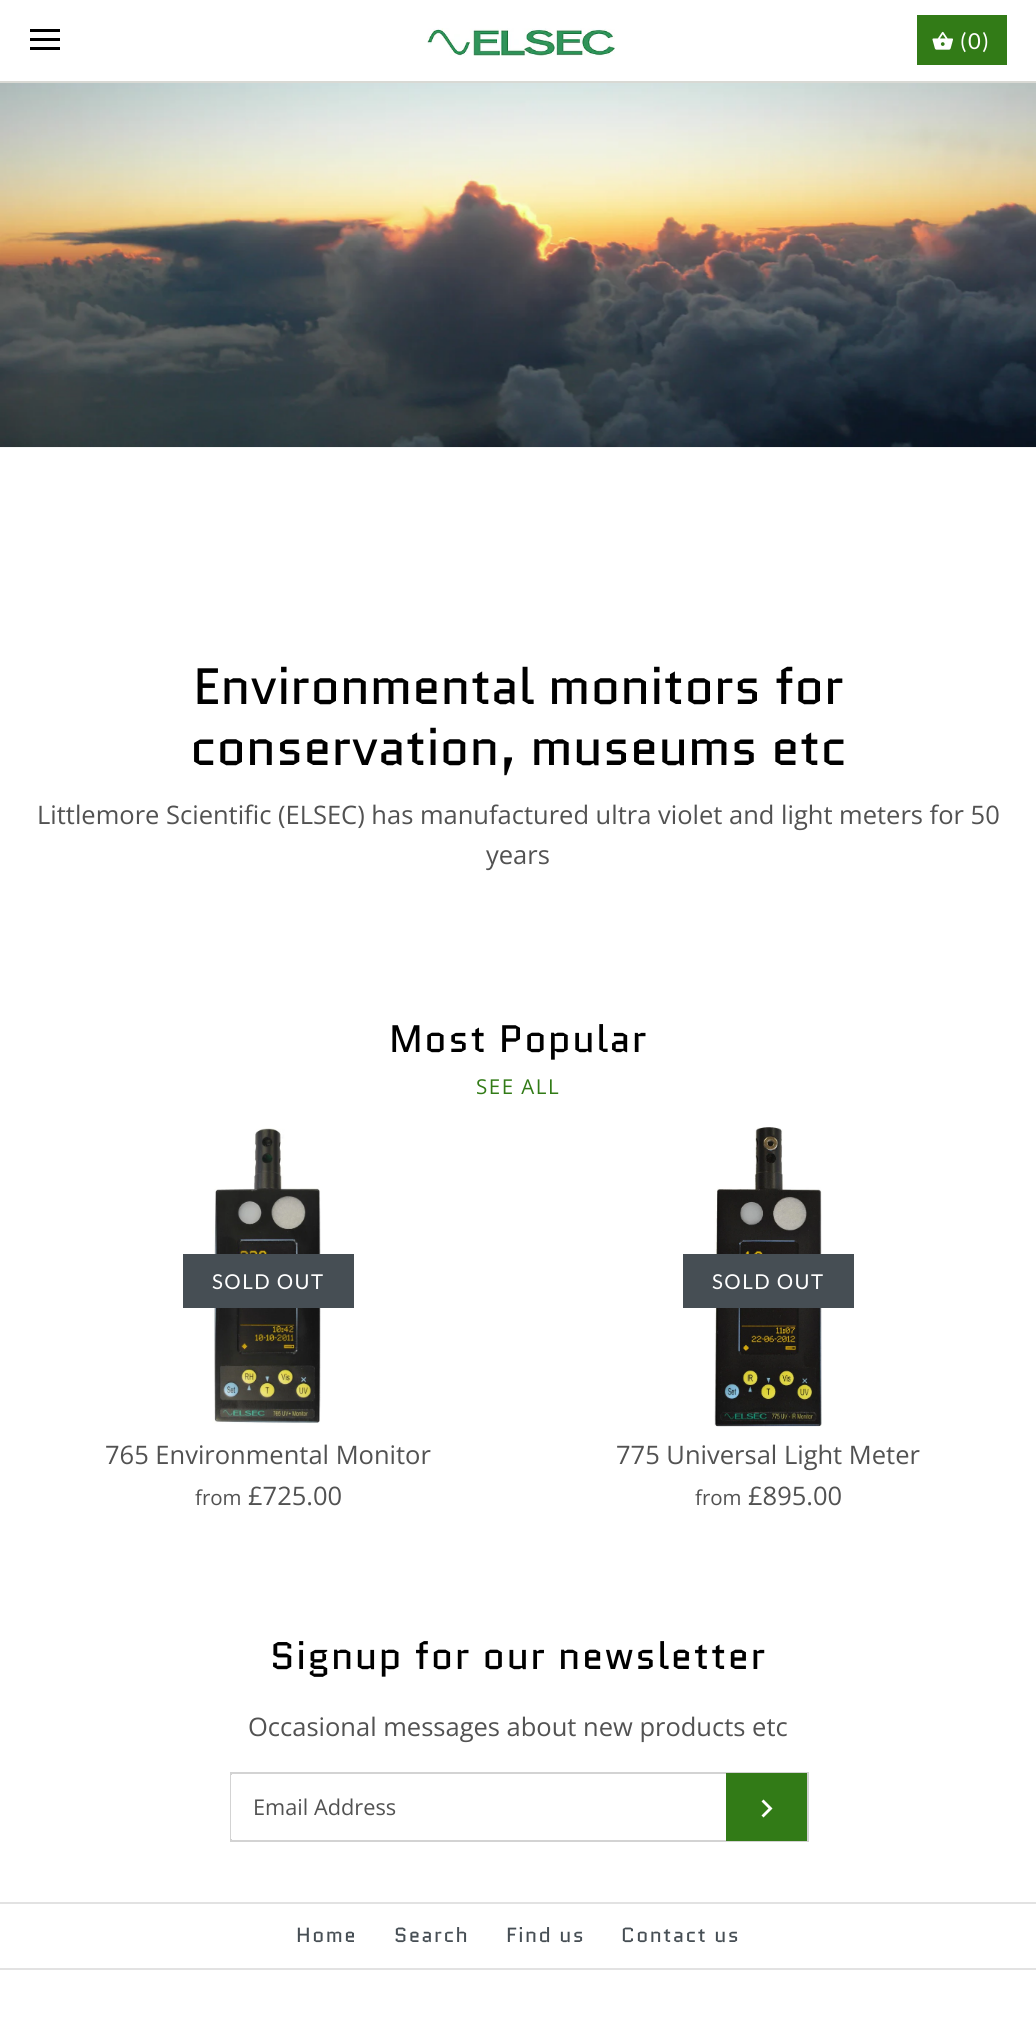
import math
import cairo

surface = cairo.ImageSurface(cairo.FORMAT_RGB24, 1036, 2037)
ctx = cairo.Context(surface)
options = cairo.FontOptions()
options.set_hint_metrics(cairo.HINT_METRICS_OFF)
options.set_hint_style(cairo.HINT_STYLE_NONE)
ctx.set_font_options(options)
ctx.set_miter_limit(4)


def spaced_text(x, y, s, letter, word):
    ctx.move_to(x, y)
    for ch in s:
        ctx.show_text(ch)
        ctx.rel_move_to(letter + word * (ch == ' '), 0)


def picture(path, x, y, w, h):
    ctx.save()
    ctx.set_source_surface(cairo.ImageSurface.create_from_png(path), x, y)
    ctx.rectangle(x, y, w, h)
    ctx.fill()
    ctx.restore()


ctx.set_source_rgb(1, 1, 1)
ctx.paint()
ctx.set_source_rgb(0.851, 0.851, 0.831)
ctx.rectangle(0, 81, 1036, 2)
ctx.fill()
ctx.set_source_rgb(0, 0, 0)
ctx.rectangle(30, 29, 30, 3)
ctx.fill()
ctx.rectangle(30, 38, 30, 3)
ctx.fill()
ctx.rectangle(30, 47, 30, 3)
ctx.fill()
picture("img1.png", 427, 28, 188, 28)
ctx.set_source_rgb(0.196, 0.482, 0.09)
ctx.rectangle(917, 15, 90, 50)
ctx.fill()
picture("img2.png", 932, 31, 21, 19)
ctx.select_font_face("Lato")
ctx.set_font_size(22)
ctx.set_source_rgb(1, 1, 1)
spaced_text(960, 49, "(0)", 1.5, 0)
picture("img3.png", 0, 83, 1036, 365)
ctx.select_font_face("Quantico")
ctx.set_font_size(51)
ctx.set_source_rgb(0, 0, 0)
ctx.move_to(193, 704)
ctx.show_text("Environmental monitors for")
ctx.move_to(190, 765)
ctx.show_text("conservation, museums etc")
ctx.select_font_face("Open Sans")
ctx.set_font_size(25.5)
ctx.set_source_rgb(0.322, 0.322, 0.322)
ctx.move_to(37, 824)
ctx.show_text("Littlemore Scientific (ELSEC) has manufactured ultra violet and light meters for 50")
ctx.move_to(486, 864)
ctx.show_text("years")
ctx.select_font_face("Quantico")
ctx.set_font_size(38.25)
ctx.set_source_rgb(0, 0, 0)
spaced_text(389, 1052, "Most Popular", 1.5, 0)
ctx.select_font_face("Open Sans")
ctx.set_font_size(20.5)
ctx.set_source_rgb(0.196, 0.482, 0.09)
spaced_text(476, 1094, "SEE ALL", 1.5, 0)
picture("img4.png", 212, 1128, 109, 296)
ctx.set_source_rgb(0.275, 0.306, 0.329)
ctx.rectangle(183, 1254, 171, 54)
ctx.fill()
ctx.select_font_face("Lato")
ctx.set_source_rgb(1, 1, 1)
spaced_text(212, 1289, "SOLD OUT", 1.5, 0)
ctx.select_font_face("Open Sans")
ctx.set_font_size(25.5)
ctx.set_source_rgb(0.322, 0.322, 0.322)
ctx.move_to(105, 1464)
ctx.show_text("765 Environmental Monitor")
ctx.set_font_size(20.5)
ctx.move_to(195, 1505)
ctx.show_text("from")
ctx.set_font_size(25.5)
ctx.move_to(248, 1505)
ctx.show_text("£725.00")
picture("img5.png", 714, 1127, 108, 300)
ctx.set_source_rgb(0.275, 0.306, 0.329)
ctx.rectangle(683, 1254, 171, 54)
ctx.fill()
ctx.select_font_face("Lato")
ctx.set_font_size(20.5)
ctx.set_source_rgb(1, 1, 1)
spaced_text(712, 1289, "SOLD OUT", 1.5, 0)
ctx.select_font_face("Open Sans")
ctx.set_font_size(25.5)
ctx.set_source_rgb(0.322, 0.322, 0.322)
ctx.move_to(616, 1464)
ctx.show_text("775 Universal Light Meter")
ctx.set_font_size(20.5)
ctx.move_to(695, 1505)
ctx.show_text("from")
ctx.set_font_size(25.5)
ctx.move_to(748, 1505)
ctx.show_text("£895.00")
ctx.select_font_face("Quantico")
ctx.set_font_size(38.25)
ctx.set_source_rgb(0, 0, 0)
spaced_text(270, 1669, "Signup for our newsletter", 1.5, 0)
ctx.select_font_face("Open Sans")
ctx.set_font_size(25.5)
ctx.set_source_rgb(0.322, 0.322, 0.322)
ctx.move_to(248, 1736)
ctx.show_text("Occasional messages about new products etc")
ctx.rectangle(231, 1773, 577, 68)
ctx.set_source_rgb(0.827, 0.827, 0.827)
ctx.stroke()
ctx.set_source_rgb(1, 1, 1)
ctx.rectangle(231, 1775, 1, 64)
ctx.fill()
ctx.set_font_size(21.75)
ctx.set_source_rgb(0.322, 0.322, 0.322)
ctx.move_to(253, 1815)
ctx.show_text("Email Address")
ctx.set_source_rgb(0.196, 0.482, 0.09)
ctx.rectangle(726, 1773, 81, 68)
ctx.fill()
ctx.set_source_rgb(1, 1, 1)
ctx.new_path()
ctx.move_to(761.5, 1815.5)
ctx.line_to(768.5, 1808.5)
ctx.line_to(761.5, 1801.5)
ctx.line_to(763.5, 1799.5)
ctx.line_to(772.5, 1808.5)
ctx.line_to(763.5, 1817.5)
ctx.close_path()
ctx.fill()
ctx.set_source_rgb(0.886, 0.886, 0.886)
ctx.rectangle(0, 1902, 1036, 2)
ctx.fill()
ctx.rectangle(0, 1968, 1036, 2)
ctx.fill()
ctx.select_font_face("Quantico")
ctx.set_font_size(20.5)
ctx.set_source_rgb(0.275, 0.306, 0.329)
spaced_text(296, 1942, "Home", 1.5, 0)
spaced_text(394, 1942, "Search", 1.5, 0)
spaced_text(506, 1942, "Find us", 1.5, 0)
spaced_text(621, 1942, "Contact us", 1.5, 0)
surface.write_to_png("page.png")
